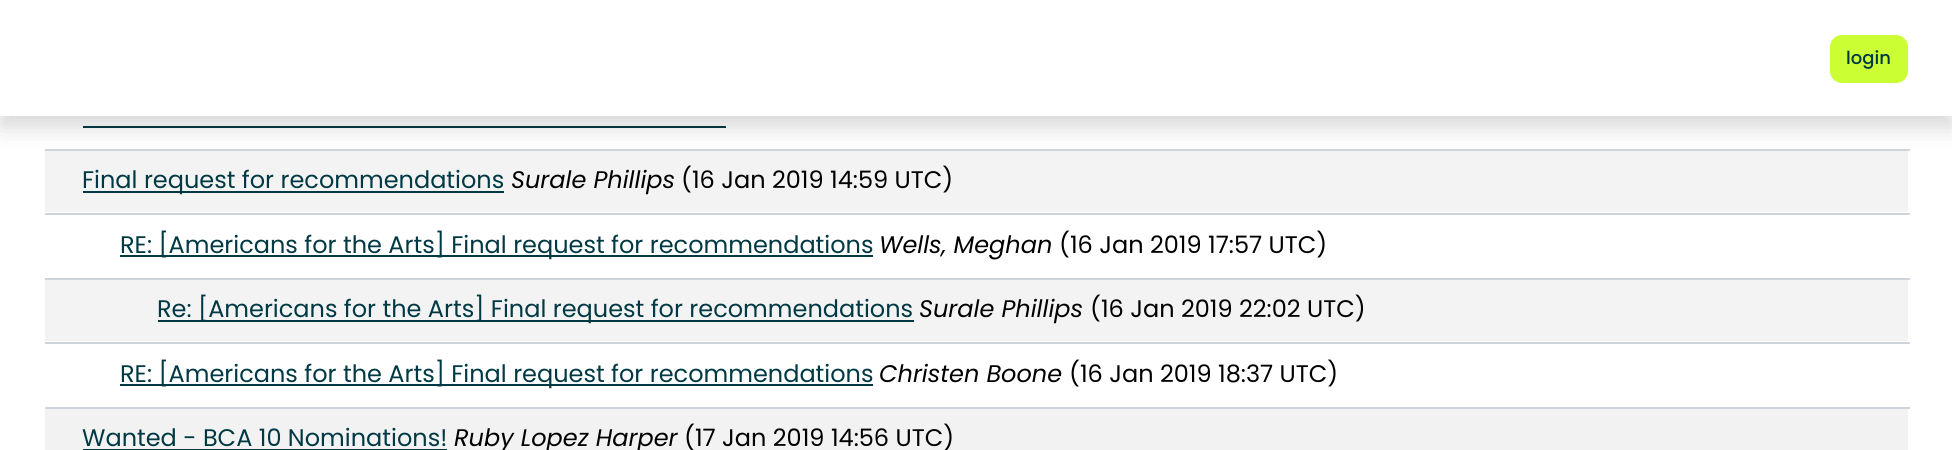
import math
import cairo

surface = cairo.ImageSurface(cairo.FORMAT_RGB24, 1952, 450)
ctx = cairo.Context(surface)
options = cairo.FontOptions()
options.set_hint_metrics(cairo.HINT_METRICS_OFF)
options.set_hint_style(cairo.HINT_STYLE_NONE)
ctx.set_font_options(options)
ctx.set_miter_limit(4)


def round_rect(x, y, w, h, r):
    ctx.new_sub_path()
    for i, (u, v) in enumerate([(x + w - r, y + h - r), (x + r, y + h - r), (x + r, y + r), (x + w - r, y + r)]):
        ctx.arc(u, v, r, i * math.pi / 2, (i + 1) * math.pi / 2)
    ctx.close_path()


def shadow(x, y, w, h, r, blur, alpha):
    ctx.push_group_with_content(cairo.CONTENT_ALPHA)
    ctx.set_operator(cairo.OPERATOR_SOURCE)
    for i in range(15, -16, -2):
        e = blur * i / 6
        if min(w, h) + 2 * e > 0:
            ctx.set_source_rgba(0, 0, 0, alpha * math.erfc((i - 1) / 8.5) / 2)
            round_rect(x - e, y - e, w + 2 * e, h + 2 * e, max(0, min(r + e + blur * .6, min(w, h) / 2 + e)))
            ctx.fill()
    ctx.mask(ctx.pop_group())


ctx.set_source_rgb(1, 1, 1)
ctx.paint()
ctx.set_source_rgb(0.808, 0.831, 0.855)
ctx.rectangle(45, 149, 1865, 2)
ctx.fill()
ctx.set_source_rgb(0, 0.224, 0.267)
ctx.rectangle(83, 126, 643, 2)
ctx.fill()
ctx.set_source_rgb(0.953, 0.953, 0.953)
ctx.rectangle(45, 151, 1863, 61)
ctx.fill()
ctx.set_source_rgb(0, 0, 0)
shadow(0, 12, 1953, 116, 0, 11, 0.15)
ctx.set_source_rgb(1, 1, 1)
ctx.rectangle(0, 0, 1952, 116)
ctx.fill()
ctx.set_source_rgb(0.8, 1, 0.2)
round_rect(1831, 36, 76, 46, 11)
ctx.fill_preserve()
ctx.stroke()
ctx.select_font_face("Poppins Medium")
ctx.set_font_size(18)
ctx.set_source_rgb(0, 0.224, 0.267)
ctx.move_to(1846, 64)
ctx.show_text("login")
ctx.set_source_rgb(0.808, 0.831, 0.855)
ctx.rectangle(45, 213, 1865, 2)
ctx.fill()
ctx.set_source_rgb(0, 0.224, 0.267)
ctx.rectangle(83, 191, 421, 2)
ctx.fill()
ctx.select_font_face("Poppins")
ctx.set_font_size(24)
ctx.move_to(82, 188)
ctx.show_text("Final request for recommendations")
ctx.select_font_face("Poppins", cairo.FONT_SLANT_ITALIC)
ctx.set_source_rgb(0, 0, 0)
ctx.move_to(511, 188)
ctx.show_text("Surale Phillips")
ctx.select_font_face("Poppins")
ctx.move_to(681, 188)
ctx.show_text("(16 Jan 2019 14:59 UTC)")
ctx.set_source_rgb(0.808, 0.831, 0.855)
ctx.rectangle(45, 278, 1865, 2)
ctx.fill()
ctx.set_source_rgb(0, 0.224, 0.267)
ctx.rectangle(120, 255, 753, 2)
ctx.fill()
ctx.move_to(120, 253)
ctx.show_text("RE: [Americans for the Arts] Final request for recommendations")
ctx.select_font_face("Poppins", cairo.FONT_SLANT_ITALIC)
ctx.set_source_rgb(0, 0, 0)
ctx.move_to(879, 253)
ctx.show_text("Wells, Meghan")
ctx.select_font_face("Poppins")
ctx.move_to(1059, 253)
ctx.show_text("(16 Jan 2019 17:57 UTC)")
ctx.set_source_rgb(0.953, 0.953, 0.953)
ctx.rectangle(45, 280, 1863, 61)
ctx.fill()
ctx.set_source_rgb(0.808, 0.831, 0.855)
ctx.rectangle(45, 342, 1865, 2)
ctx.fill()
ctx.set_source_rgb(0, 0.224, 0.267)
ctx.rectangle(158, 320, 756, 2)
ctx.fill()
ctx.move_to(157, 317)
ctx.show_text("Re: [Americans for the Arts] Final request for recommendations")
ctx.select_font_face("Poppins", cairo.FONT_SLANT_ITALIC)
ctx.set_source_rgb(0, 0, 0)
ctx.move_to(919, 317)
ctx.show_text("Surale Phillips")
ctx.select_font_face("Poppins")
ctx.move_to(1090, 317)
ctx.show_text("(16 Jan 2019 22:02 UTC)")
ctx.set_source_rgb(0.808, 0.831, 0.855)
ctx.rectangle(45, 407, 1865, 2)
ctx.fill()
ctx.set_source_rgb(0, 0.224, 0.267)
ctx.rectangle(120, 384, 753, 2)
ctx.fill()
ctx.move_to(120, 382)
ctx.show_text("RE: [Americans for the Arts] Final request for recommendations")
ctx.select_font_face("Poppins", cairo.FONT_SLANT_ITALIC)
ctx.set_source_rgb(0, 0, 0)
ctx.move_to(879, 382)
ctx.show_text("Christen Boone")
ctx.select_font_face("Poppins")
ctx.move_to(1069, 382)
ctx.show_text("(16 Jan 2019 18:37 UTC)")
ctx.set_source_rgb(0.949, 0.949, 0.949)
ctx.rectangle(45, 409, 1863, 41)
ctx.fill()
ctx.set_source_rgb(0, 0.224, 0.267)
ctx.move_to(82, 446)
ctx.show_text("Wanted - BCA 10 Nominations!")
ctx.rectangle(83, 449, 364, 1)
ctx.fill()
ctx.select_font_face("Poppins", cairo.FONT_SLANT_ITALIC)
ctx.set_source_rgb(0, 0, 0)
ctx.move_to(454, 446)
ctx.show_text("Ruby Lopez Harper")
ctx.select_font_face("Poppins")
ctx.move_to(684, 446)
ctx.show_text("(17 Jan 2019 14:56 UTC)")
surface.write_to_png("page.png")
